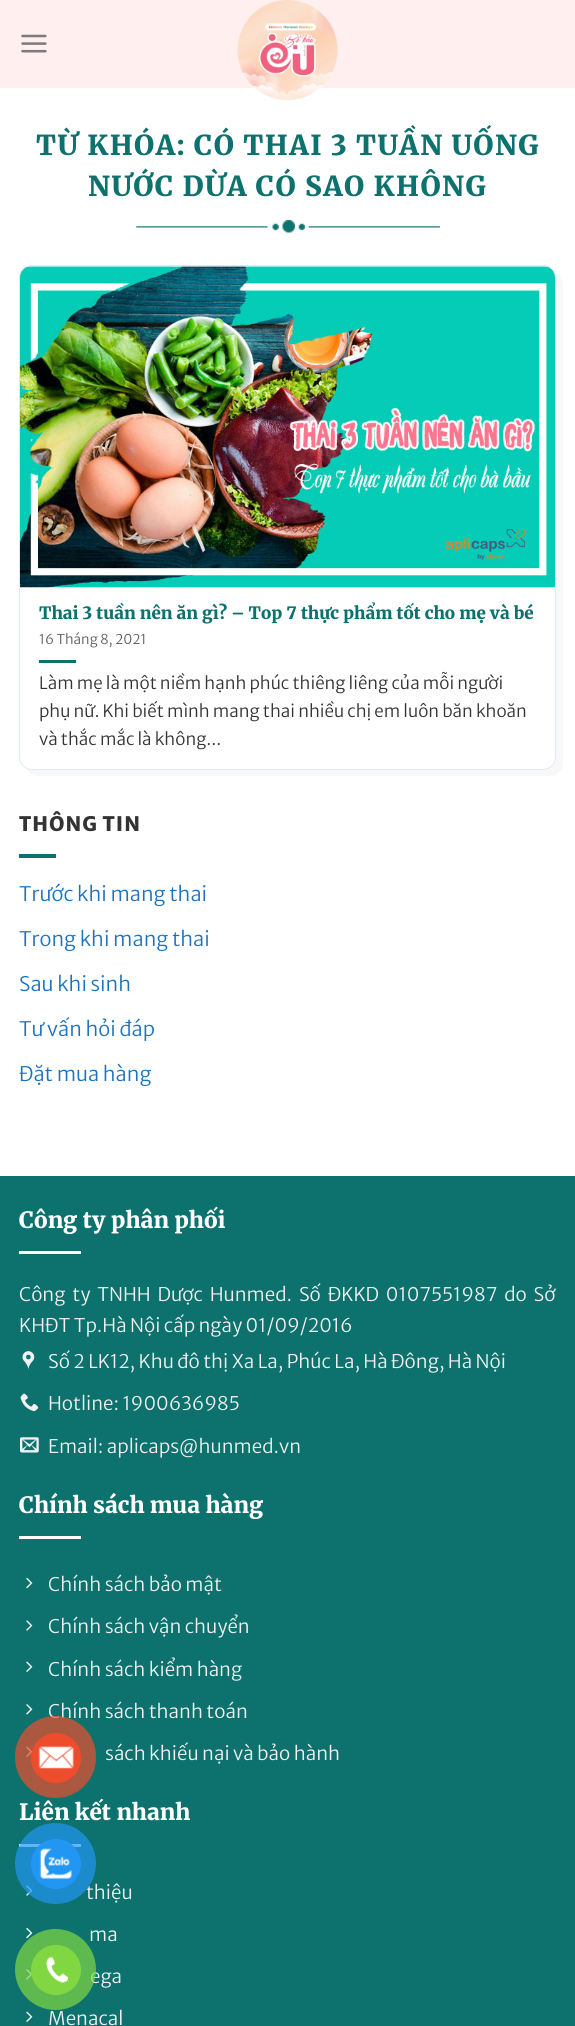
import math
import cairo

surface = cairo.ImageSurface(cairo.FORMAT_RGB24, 575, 2026)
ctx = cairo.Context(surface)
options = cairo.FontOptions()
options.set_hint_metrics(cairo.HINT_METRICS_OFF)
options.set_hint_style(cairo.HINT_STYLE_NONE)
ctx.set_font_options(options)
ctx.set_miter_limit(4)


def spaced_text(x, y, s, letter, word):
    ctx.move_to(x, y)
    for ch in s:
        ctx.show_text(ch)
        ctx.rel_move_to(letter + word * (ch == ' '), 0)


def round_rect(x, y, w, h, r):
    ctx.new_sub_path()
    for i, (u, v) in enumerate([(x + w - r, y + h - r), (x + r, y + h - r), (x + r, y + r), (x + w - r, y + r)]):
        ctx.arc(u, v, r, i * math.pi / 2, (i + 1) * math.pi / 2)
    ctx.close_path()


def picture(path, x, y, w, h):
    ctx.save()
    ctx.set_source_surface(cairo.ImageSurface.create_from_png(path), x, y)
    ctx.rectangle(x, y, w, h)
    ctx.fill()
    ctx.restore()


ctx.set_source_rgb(1, 1, 1)
ctx.paint()
ctx.set_source_rgb(1, 0.937, 0.937)
ctx.rectangle(0, 0, 575, 88)
ctx.fill()
picture("img1.png", 21, 34, 26, 19)
picture("img2.png", 237, 0, 101, 100)
ctx.select_font_face("Merriweather Light")
ctx.set_font_size(27.5)
ctx.set_source_rgb(0.051, 0.447, 0.431)
spaced_text(36, 155, "TỪ KHÓA: CÓ THAI 3 TUẦN UỐNG", 1.4, 0)
spaced_text(88, 196, "NƯỚC DỪA CÓ SAO KHÔNG", 1.4, 0)
picture("img3.png", 136, 220, 304, 13)
ctx.set_source_rgb(0.969, 0.969, 0.969)
ctx.new_path()
ctx.move_to(26, 769)
ctx.curve_to(29, 773, 33, 776, 38, 776)
ctx.line_to(550, 776)
ctx.curve_to(557, 776, 563, 770, 563, 763)
ctx.line_to(563, 284)
ctx.curve_to(563, 279, 560, 274, 555, 272)
ctx.curve_to(556, 274, 556, 276, 556, 278)
ctx.line_to(556, 758)
ctx.curve_to(556, 764, 551, 770, 544, 770)
ctx.line_to(31, 770)
ctx.close_path()
ctx.fill()
round_rect(19.5, 265.5, 536, 504, 12.5)
ctx.set_source_rgb(0.886, 0.91, 0.941)
ctx.set_line_width(1)
ctx.stroke()
picture("img4.png", 20, 266, 535, 322)
ctx.set_font_size(17)
ctx.set_source_rgb(0.051, 0.447, 0.431)
ctx.move_to(39, 619)
ctx.show_text("Thai 3 tuần nên ăn gì? – Top 7 thực phẩm tốt cho mẹ và bé")
ctx.select_font_face("Merriweather Sans Light")
ctx.set_font_size(13.5)
ctx.set_source_rgb(0.361, 0.361, 0.361)
ctx.move_to(39, 644)
ctx.show_text("16 Tháng 8, 2021")
ctx.set_source_rgb(0.051, 0.447, 0.431)
ctx.rectangle(39, 660, 37, 3)
ctx.fill()
ctx.set_font_size(17)
ctx.set_source_rgb(0.2, 0.2, 0.2)
ctx.move_to(39, 689)
ctx.show_text("Làm mẹ là một niềm hạnh phúc thiêng liêng của mỗi người")
ctx.move_to(39, 717)
ctx.show_text("phụ nữ. Khi biết mình mang thai nhiều chị em luôn băn khoăn")
ctx.move_to(39, 745)
ctx.show_text("và thắc mắc là không...")
ctx.select_font_face("Merriweather Sans ExtraBold")
ctx.set_font_size(20)
spaced_text(19, 831, "THÔNG TIN", 1, 0)
ctx.set_source_rgb(0.051, 0.447, 0.431)
ctx.rectangle(19, 854, 37, 4)
ctx.fill()
ctx.select_font_face("Merriweather Sans Light")
ctx.set_source_rgb(0.118, 0.451, 0.745)
ctx.move_to(19, 901)
ctx.show_text("Trước khi mang thai")
ctx.move_to(19, 946)
ctx.show_text("Trong khi mang thai")
ctx.move_to(19, 991)
ctx.show_text("Sau khi sinh")
ctx.move_to(19, 1036)
ctx.show_text("Tư vấn hỏi đáp")
ctx.move_to(19, 1081)
ctx.show_text("Đặt mua hàng")
ctx.set_source_rgb(0.051, 0.447, 0.431)
ctx.rectangle(0, 1176, 575, 850)
ctx.fill()
ctx.select_font_face("Merriweather Light")
ctx.set_font_size(22.5)
ctx.set_source_rgb(1, 1, 1)
ctx.move_to(19, 1228)
ctx.show_text("Công ty phân phối")
ctx.rectangle(19, 1251, 62, 3)
ctx.fill()
ctx.select_font_face("Merriweather Sans Light")
ctx.set_font_size(18.75)
ctx.set_source_rgb(0.945, 0.945, 0.945)
spaced_text(19, 1301, "Công ty TNHH Dược Hunmed. Số ĐKKD 0107551987 do Sở", 0, 3.5)
ctx.move_to(19, 1332)
ctx.show_text("KHĐT Tp.Hà Nội cấp ngày 01/09/2016")
picture("img5.png", 22, 1351, 13, 19)
ctx.move_to(48, 1368)
ctx.show_text("Số 2 LK12, Khu đô thị Xa La, Phúc La, Hà Đông, Hà Nội")
picture("img6.png", 20, 1393, 19, 19)
ctx.move_to(48, 1410)
ctx.show_text("Hotline: 1900636985")
picture("img7.png", 20, 1437, 19, 16)
ctx.move_to(48, 1453)
ctx.show_text("Email: aplicaps@hunmed.vn")
ctx.select_font_face("Merriweather Light")
ctx.set_font_size(22.5)
ctx.set_source_rgb(1, 1, 1)
ctx.move_to(19, 1513)
ctx.show_text("Chính sách mua hàng")
ctx.rectangle(19, 1536, 62, 3)
ctx.fill()
picture("img8.png", 26, 1577, 7, 12)
ctx.select_font_face("Merriweather Sans Light")
ctx.set_font_size(18.75)
ctx.set_source_rgb(0.945, 0.945, 0.945)
ctx.move_to(48, 1591)
ctx.show_text("Chính sách bảo mật")
picture("img9.png", 26, 1620, 7, 11)
ctx.move_to(48, 1633)
ctx.show_text("Chính sách vận chuyển")
picture("img10.png", 26, 1661, 7, 11)
ctx.move_to(48, 1676)
ctx.show_text("Chính sách kiểm hàng")
picture("img11.png", 26, 1704, 7, 11)
ctx.move_to(48, 1718)
ctx.show_text("Chính sách thanh toán")
picture("img12.png", 26, 1746, 6, 11)
ctx.move_to(105, 1760)
ctx.show_text("sách khiếu nại và bảo hành")
ctx.select_font_face("Merriweather Light")
ctx.set_font_size(22.5)
ctx.set_source_rgb(1, 1, 1)
ctx.move_to(19, 1820)
ctx.show_text("Liên kết nhanh")
ctx.rectangle(19, 1844, 62, 3)
ctx.fill()
picture("img9.png", 26, 1885, 7, 11)
ctx.select_font_face("Merriweather Sans Light")
ctx.set_font_size(18.75)
ctx.set_source_rgb(0.945, 0.945, 0.945)
ctx.move_to(86, 1899)
ctx.show_text("thiệu")
picture("img8.png", 26, 1927, 7, 12)
ctx.move_to(89, 1941)
ctx.show_text("ma")
picture("img13.png", 26, 1969, 6, 11)
ctx.move_to(90, 1983)
ctx.show_text("ega")
picture("img10.png", 26, 2011, 7, 11)
ctx.move_to(48, 2025)
ctx.show_text("Menacal")
ctx.set_source_rgba(0.929, 0.302, 0.173, 0.7)
round_rect(15, 1716, 81, 82, 40.5)
ctx.fill()
ctx.set_source_rgb(0.929, 0.302, 0.173)
ctx.arc(56, 1758, 25, 0, 2 * math.pi)
ctx.fill()
picture("img14.png", 38, 1746, 36, 23)
ctx.set_source_rgba(0.129, 0.588, 0.953, 0.7)
ctx.arc(55.5, 1863.5, 40.5, 0, 2 * math.pi)
ctx.fill()
ctx.set_source_rgb(0.129, 0.588, 0.953)
ctx.arc(56, 1864, 25, 0, 2 * math.pi)
ctx.fill()
picture("img15.png", 39, 1848, 33, 32)
ctx.set_source_rgba(0.506, 0.843, 0.259, 0.7)
ctx.arc(55.5, 1969.5, 40.5, 0, 2 * math.pi)
ctx.fill()
ctx.set_source_rgb(0.506, 0.843, 0.259)
ctx.arc(56, 1970, 25, 0, 2 * math.pi)
ctx.fill()
picture("img16.png", 46, 1956, 22, 27)
surface.write_to_png("page.png")
